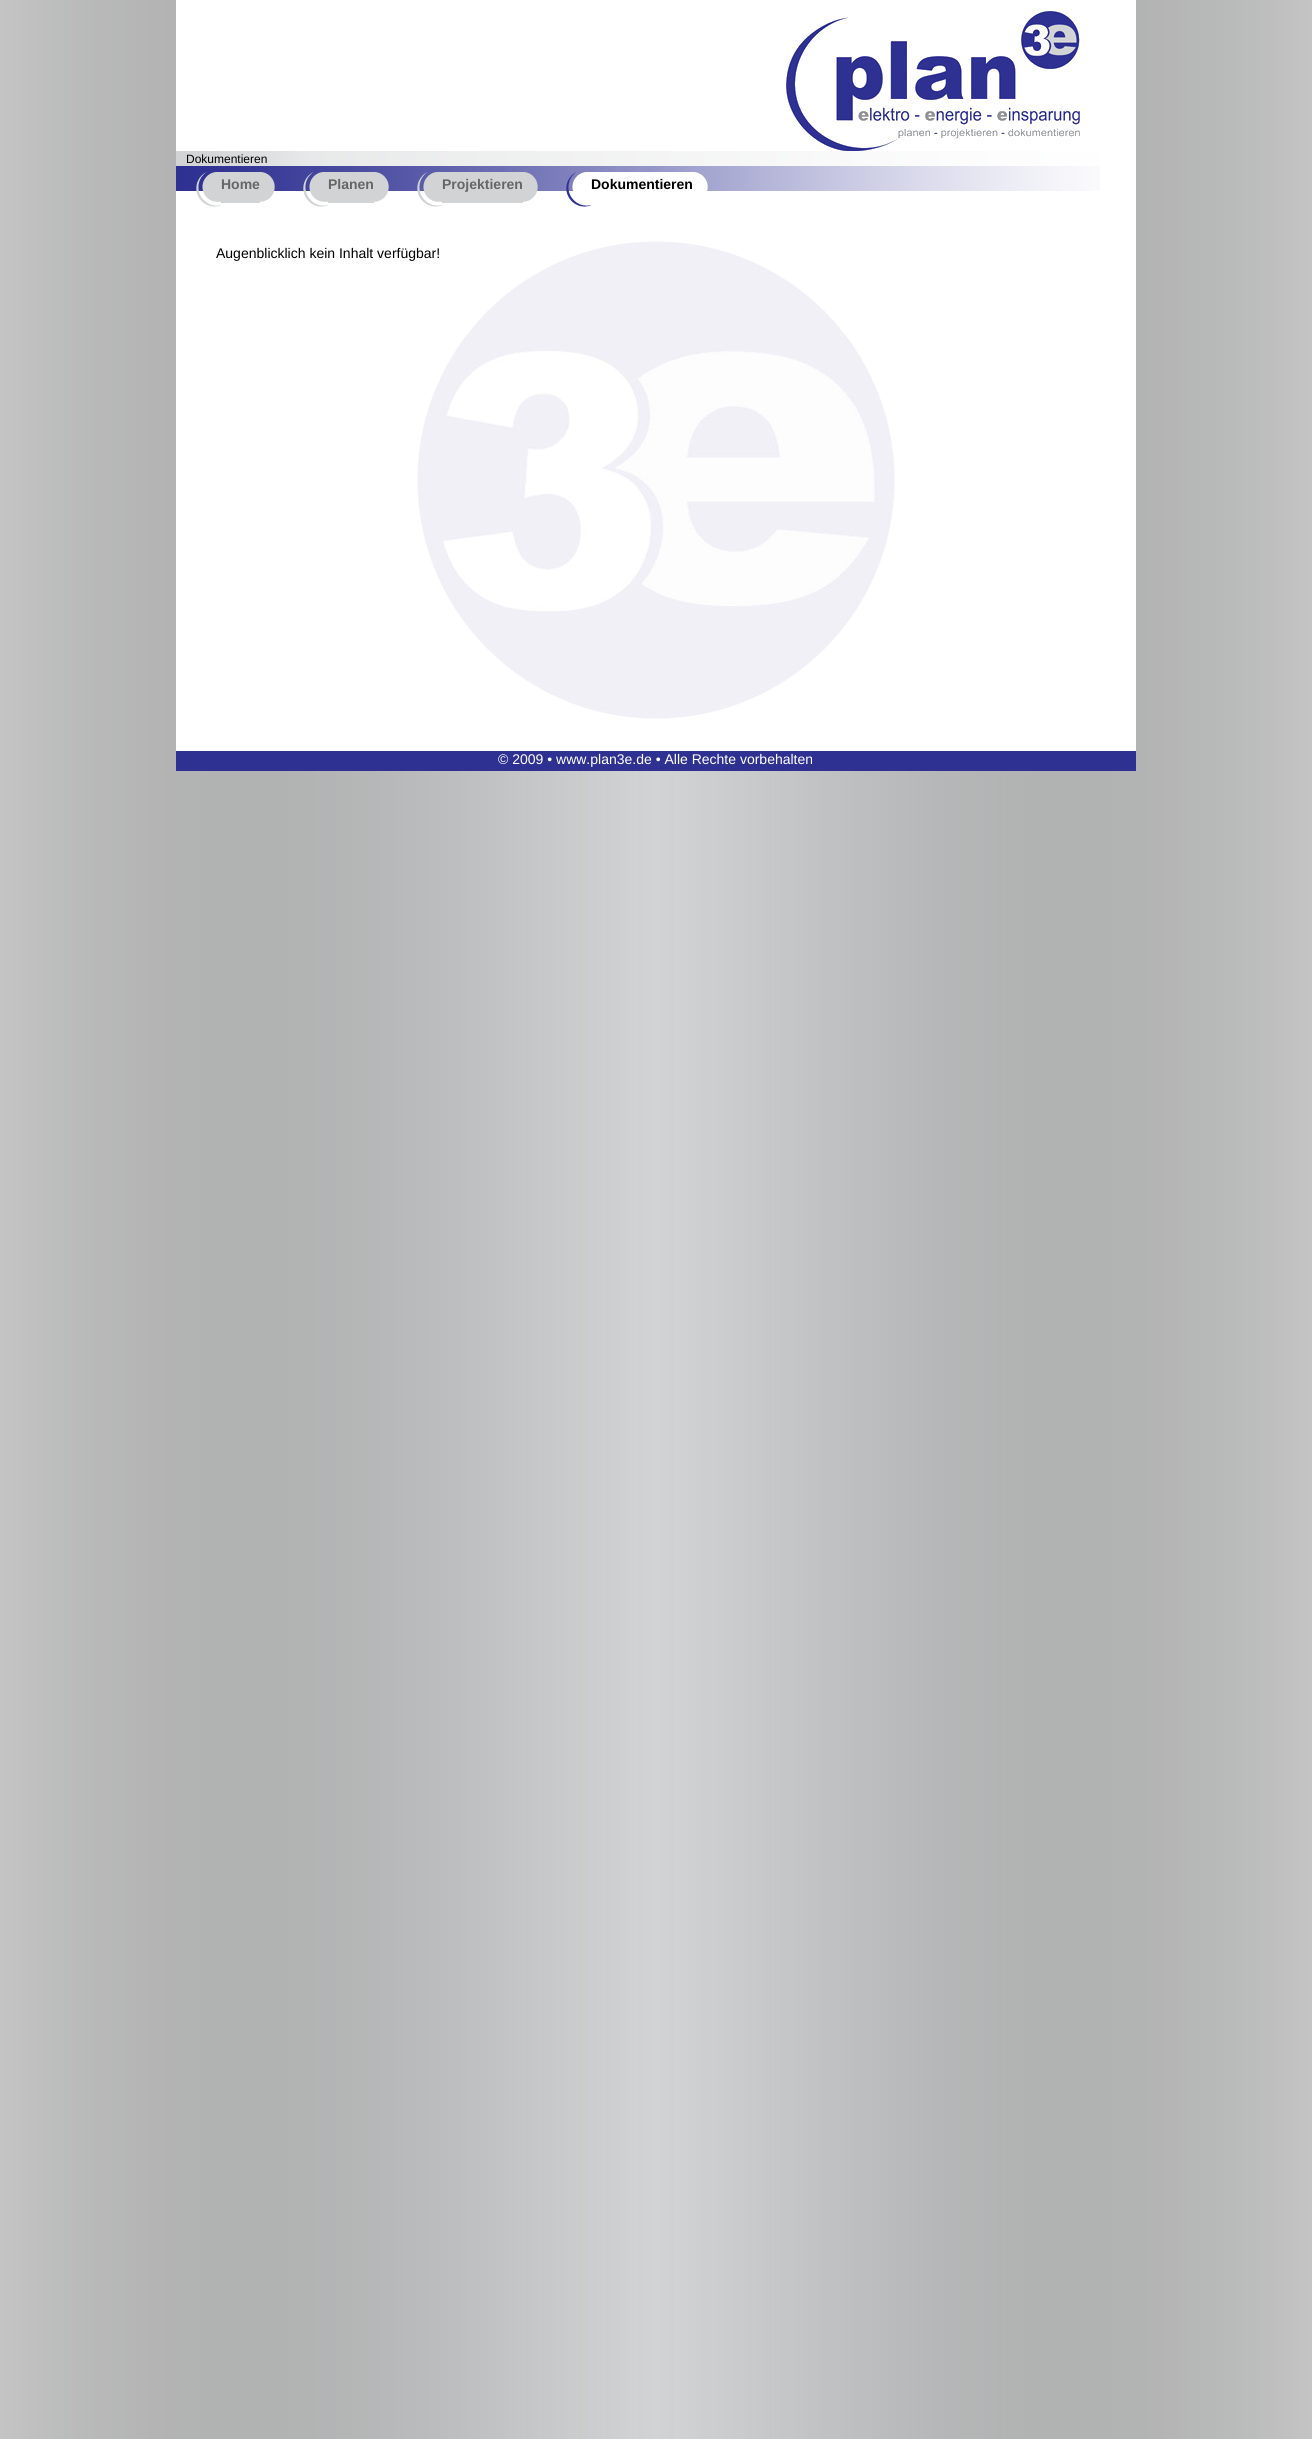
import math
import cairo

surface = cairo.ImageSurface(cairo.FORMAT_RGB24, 1312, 2439)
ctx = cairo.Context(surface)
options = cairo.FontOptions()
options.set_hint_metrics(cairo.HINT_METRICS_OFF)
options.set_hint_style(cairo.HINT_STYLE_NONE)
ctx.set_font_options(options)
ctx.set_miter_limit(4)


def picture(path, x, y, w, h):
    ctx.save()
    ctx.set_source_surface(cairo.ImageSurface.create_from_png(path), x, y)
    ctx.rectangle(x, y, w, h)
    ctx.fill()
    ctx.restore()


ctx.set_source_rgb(1, 1, 1)
ctx.paint()
picture("img1.png", 0, 0, 1312, 2439)
ctx.set_source_rgb(1, 1, 1)
ctx.rectangle(176, 0, 960, 751)
ctx.fill()
picture("img2.png", 786, 11, 294, 140)
picture("img3.png", 176, 151, 924, 40)
ctx.select_font_face("Liberation Sans")
ctx.set_font_size(12)
ctx.set_source_rgb(0, 0, 0)
ctx.move_to(186, 163)
ctx.show_text("Dokumentieren")
picture("img4.png", 196, 172, 25, 35)
ctx.set_source_rgb(0.82, 0.827, 0.831)
ctx.rectangle(221, 172, 39, 31)
ctx.fill()
ctx.select_font_face("Liberation Sans", cairo.FONT_SLANT_NORMAL, cairo.FONT_WEIGHT_BOLD)
ctx.set_font_size(14)
ctx.set_source_rgb(0.4, 0.4, 0.4)
ctx.move_to(221, 189)
ctx.show_text("Home")
picture("img5.png", 260, 172, 15, 30)
picture("img6.png", 303, 172, 25, 35)
ctx.set_source_rgb(0.82, 0.827, 0.831)
ctx.rectangle(328, 172, 46, 31)
ctx.fill()
ctx.set_source_rgb(0.4, 0.4, 0.4)
ctx.move_to(328, 189)
ctx.show_text("Planen")
picture("img7.png", 374, 172, 15, 30)
picture("img8.png", 417, 172, 25, 35)
ctx.set_source_rgb(0.82, 0.827, 0.831)
ctx.rectangle(442, 172, 81, 31)
ctx.fill()
ctx.set_source_rgb(0.4, 0.4, 0.4)
ctx.move_to(442, 189)
ctx.show_text("Projektieren")
picture("img9.png", 523, 172, 15, 30)
picture("img10.png", 566, 172, 25, 35)
ctx.set_source_rgb(1, 1, 1)
ctx.rectangle(591, 172, 102, 19)
ctx.fill()
ctx.set_source_rgb(0, 0, 0)
ctx.move_to(591, 189)
ctx.show_text("Dokumentieren")
picture("img11.png", 693, 172, 15, 19)
picture("img12.png", 417, 241, 478, 478)
ctx.select_font_face("Liberation Sans")
ctx.move_to(216, 258)
ctx.show_text("Augenblicklich kein Inhalt verfügbar!")
ctx.set_source_rgb(0.184, 0.192, 0.573)
ctx.rectangle(176, 751, 960, 20)
ctx.fill()
ctx.set_source_rgb(1, 1, 1)
ctx.move_to(498, 764)
ctx.show_text("© 2009 • www.plan3e.de • Alle Rechte vorbehalten")
surface.write_to_png("page.png")
